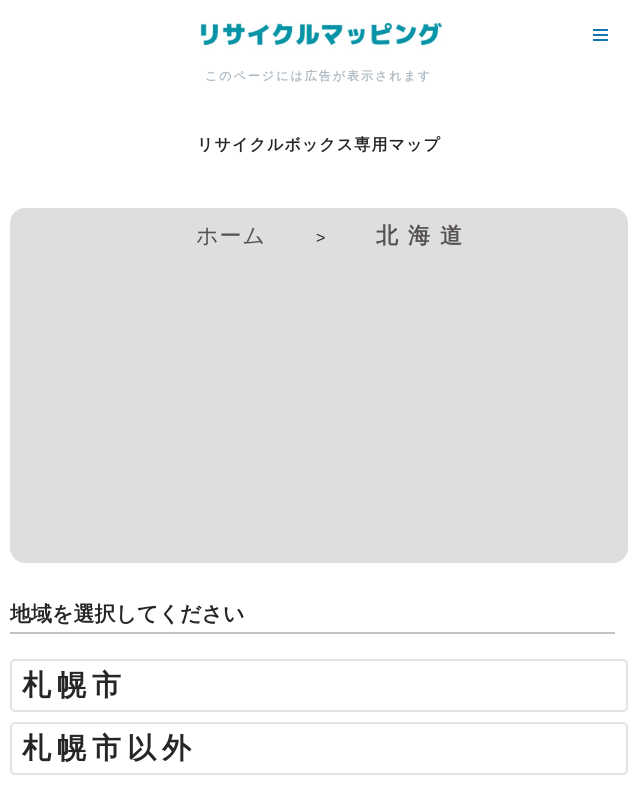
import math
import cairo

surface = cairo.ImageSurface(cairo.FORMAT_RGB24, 638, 789)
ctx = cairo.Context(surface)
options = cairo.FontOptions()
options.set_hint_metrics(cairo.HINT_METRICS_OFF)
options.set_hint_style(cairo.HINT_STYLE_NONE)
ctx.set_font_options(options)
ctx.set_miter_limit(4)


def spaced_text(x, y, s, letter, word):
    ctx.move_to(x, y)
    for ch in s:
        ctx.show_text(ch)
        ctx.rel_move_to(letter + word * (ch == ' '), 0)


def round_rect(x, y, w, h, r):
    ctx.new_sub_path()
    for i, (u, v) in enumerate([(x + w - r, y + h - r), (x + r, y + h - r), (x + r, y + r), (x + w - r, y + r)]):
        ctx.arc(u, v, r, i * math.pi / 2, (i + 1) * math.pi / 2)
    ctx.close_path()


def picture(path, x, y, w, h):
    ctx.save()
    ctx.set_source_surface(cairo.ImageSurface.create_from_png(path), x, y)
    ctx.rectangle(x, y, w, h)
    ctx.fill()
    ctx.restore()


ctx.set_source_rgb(1, 1, 1)
ctx.paint()
picture("img1.png", 200, 20, 244, 29)
ctx.set_source_rgb(0.078, 0.463, 0.702)
ctx.rectangle(593, 29, 15, 2)
ctx.fill()
ctx.rectangle(593, 34, 15, 2)
ctx.fill()
ctx.rectangle(593, 39, 15, 2)
ctx.fill()
ctx.select_font_face("WenQuanYi Zen Hei", cairo.FONT_SLANT_NORMAL, cairo.FONT_WEIGHT_BOLD)
ctx.set_font_size(12)
ctx.set_source_rgb(0.682, 0.729, 0.765)
spaced_text(205, 80, "このページには広告が表示されます", 2, 0)
ctx.set_font_size(16)
ctx.set_source_rgb(0.153, 0.149, 0.149)
spaced_text(197, 150, "リサイクルボックス専用マップ", 1.1, 0)
ctx.set_source_rgb(0.871, 0.871, 0.871)
round_rect(10, 208, 618, 355, 15)
ctx.fill()
ctx.select_font_face("WenQuanYi Zen Hei Medium")
ctx.set_font_size(22)
ctx.set_source_rgb(0.337, 0.322, 0.322)
spaced_text(196, 243, "ホーム", 1, 0)
ctx.select_font_face("Liberation Sans")
ctx.set_font_size(16)
ctx.set_source_rgb(0.153, 0.149, 0.149)
ctx.move_to(316, 243)
ctx.show_text(">")
ctx.select_font_face("WenQuanYi Zen Hei", cairo.FONT_SLANT_NORMAL, cairo.FONT_WEIGHT_BOLD)
ctx.set_font_size(22)
ctx.set_source_rgb(0.337, 0.322, 0.322)
spaced_text(376, 243, "北海道", 10, 0)
ctx.set_font_size(21)
ctx.set_source_rgb(0.153, 0.149, 0.149)
ctx.move_to(10, 621)
ctx.show_text("地域を選択してください")
ctx.set_source_rgb(0.761, 0.765, 0.765)
ctx.rectangle(10, 632, 605, 2)
ctx.fill()
round_rect(11, 660, 616, 51, 4)
ctx.set_source_rgb(0.89, 0.89, 0.898)
ctx.stroke()
ctx.set_font_size(29)
ctx.set_source_rgb(0.153, 0.149, 0.149)
spaced_text(22, 695, "札幌市", 6, 0)
round_rect(11, 723, 616, 51, 4)
ctx.set_source_rgb(0.89, 0.89, 0.898)
ctx.stroke()
ctx.set_source_rgb(0.153, 0.149, 0.149)
spaced_text(22, 758, "札幌市以外", 6, 0)
surface.write_to_png("page.png")
